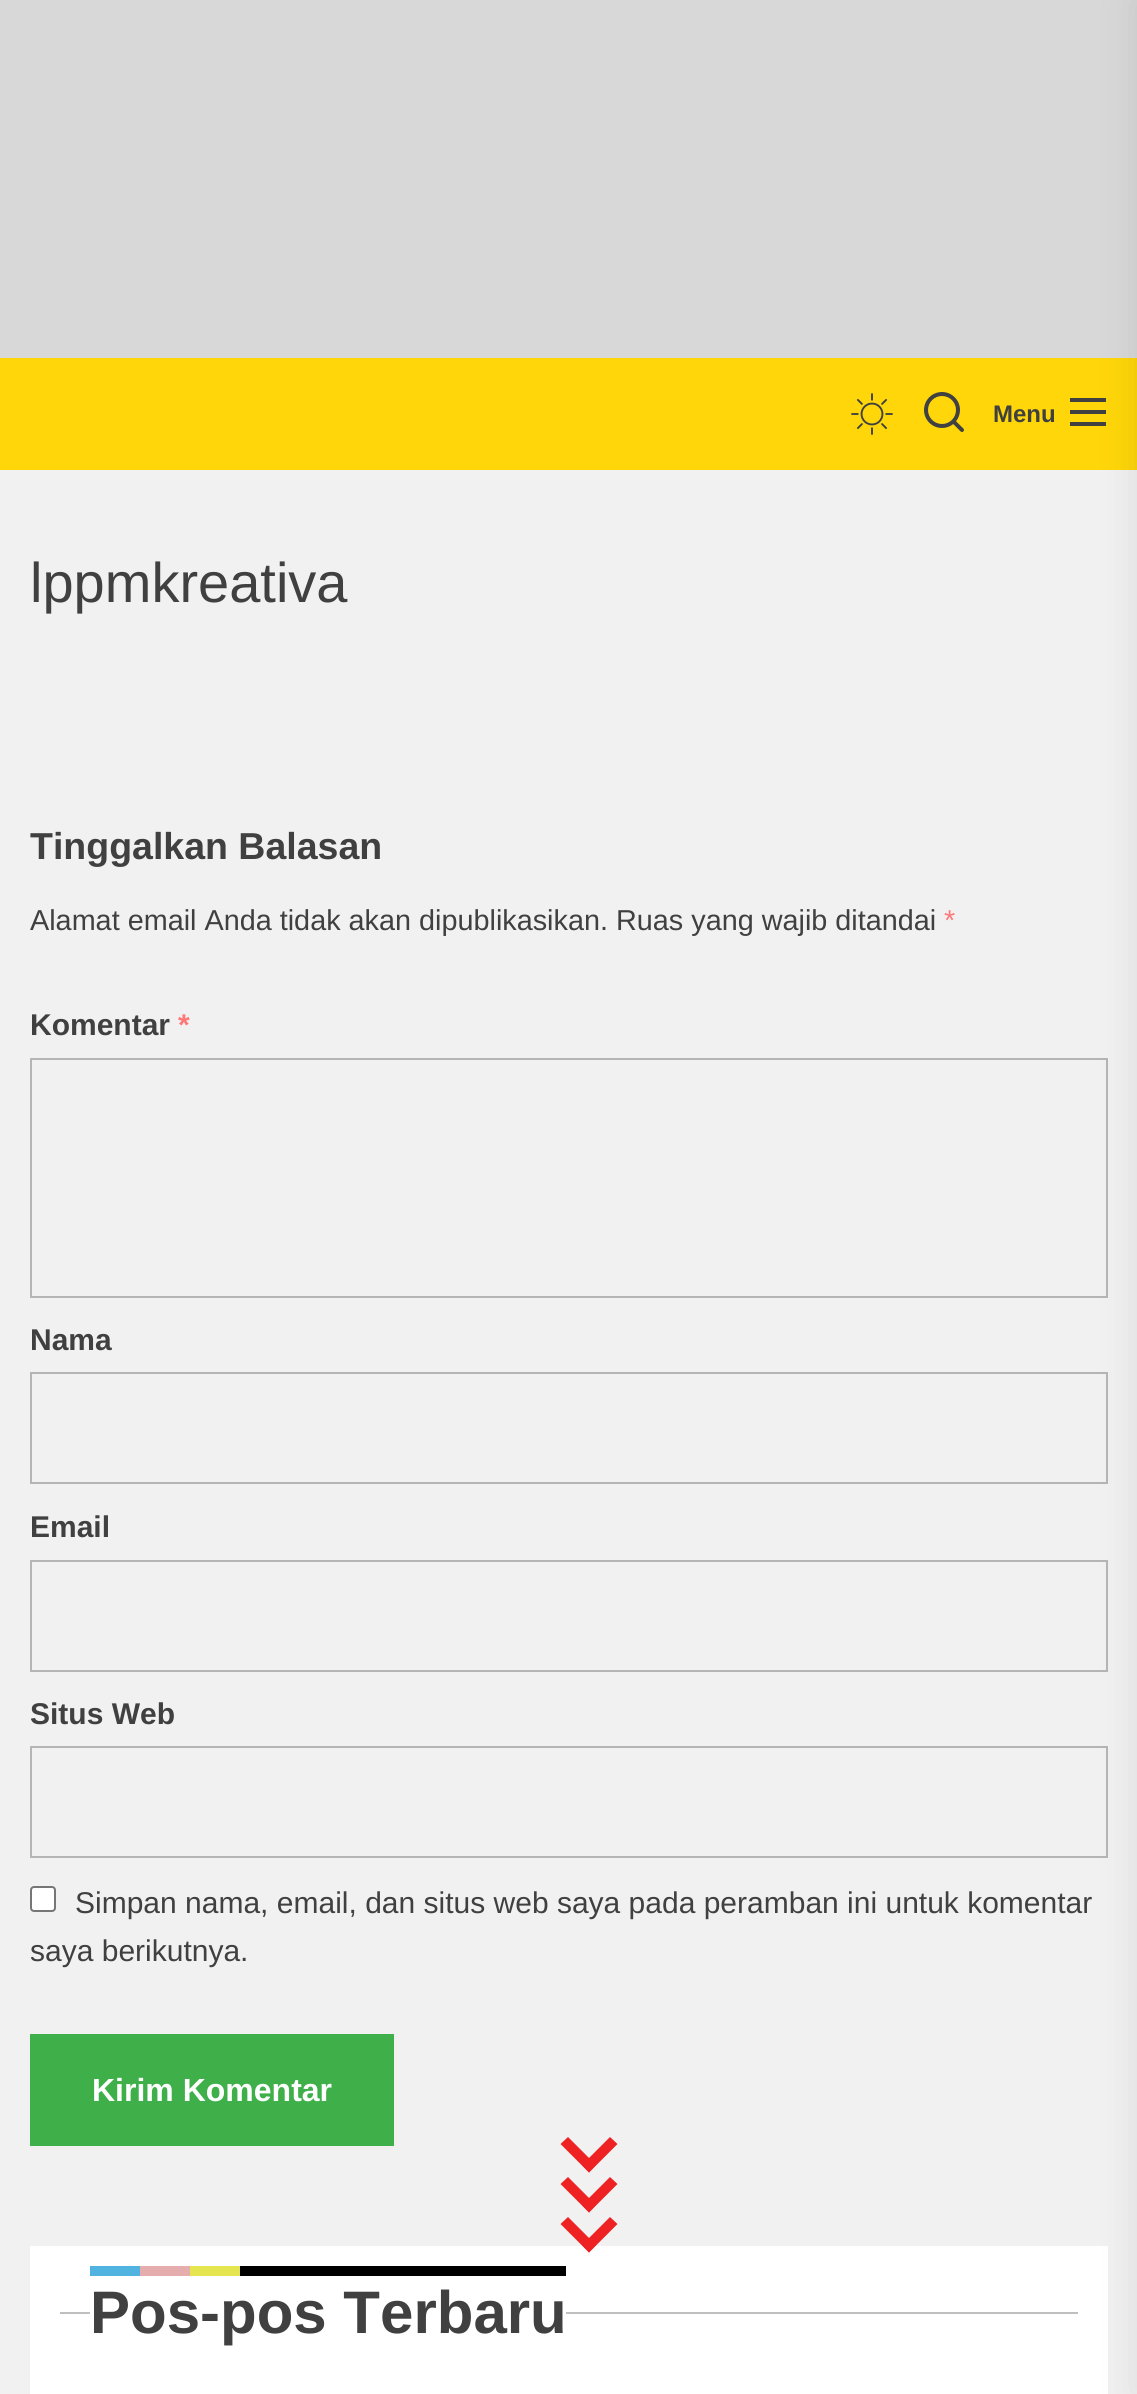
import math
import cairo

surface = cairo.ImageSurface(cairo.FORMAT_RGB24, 1137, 2394)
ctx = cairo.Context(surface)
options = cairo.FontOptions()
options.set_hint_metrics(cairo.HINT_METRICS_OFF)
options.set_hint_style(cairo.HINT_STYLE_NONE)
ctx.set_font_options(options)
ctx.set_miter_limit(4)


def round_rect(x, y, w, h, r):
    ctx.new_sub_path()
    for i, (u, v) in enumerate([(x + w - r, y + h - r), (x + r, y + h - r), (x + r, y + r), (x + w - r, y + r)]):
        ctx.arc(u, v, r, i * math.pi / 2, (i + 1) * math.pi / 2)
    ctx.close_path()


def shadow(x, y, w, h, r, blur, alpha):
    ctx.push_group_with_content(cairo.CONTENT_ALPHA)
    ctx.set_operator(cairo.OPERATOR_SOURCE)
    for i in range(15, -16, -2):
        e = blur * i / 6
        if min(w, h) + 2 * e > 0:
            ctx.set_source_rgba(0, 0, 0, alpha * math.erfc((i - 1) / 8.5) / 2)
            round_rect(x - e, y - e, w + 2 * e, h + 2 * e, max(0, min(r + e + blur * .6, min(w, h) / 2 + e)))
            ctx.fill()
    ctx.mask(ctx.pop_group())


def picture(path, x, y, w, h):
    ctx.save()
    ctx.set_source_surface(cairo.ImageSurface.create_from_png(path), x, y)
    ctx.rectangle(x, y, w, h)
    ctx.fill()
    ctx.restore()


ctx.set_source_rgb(0.945, 0.945, 0.945)
ctx.paint()
ctx.set_source_rgb(0.847, 0.847, 0.847)
ctx.rectangle(0, 0, 1137, 358)
ctx.fill()
ctx.set_source_rgb(1, 0.839, 0.039)
ctx.rectangle(0, 358, 1137, 112)
ctx.fill()
picture("img1.png", 851, 393, 42, 42)
picture("img2.png", 924, 392, 40, 40)
ctx.select_font_face("Liberation Sans", cairo.FONT_SLANT_NORMAL, cairo.FONT_WEIGHT_BOLD)
ctx.set_font_size(24)
ctx.set_source_rgb(0.251, 0.251, 0.251)
ctx.move_to(993, 422)
ctx.show_text("Menu")
ctx.new_path()
ctx.move_to(1070, 398)
ctx.line_to(1070, 402)
ctx.line_to(1106, 402)
ctx.line_to(1106, 398)
ctx.close_path()
ctx.move_to(1070, 414)
ctx.line_to(1106, 414)
ctx.line_to(1106, 410)
ctx.line_to(1070, 410)
ctx.close_path()
ctx.move_to(1070, 426)
ctx.line_to(1106, 426)
ctx.line_to(1106, 422)
ctx.line_to(1070, 422)
ctx.close_path()
ctx.fill()
ctx.rectangle(31, 1059, 1076, 238)
ctx.set_source_rgb(0.71, 0.71, 0.71)
ctx.stroke()
ctx.rectangle(31, 1373, 1076, 110)
ctx.stroke()
ctx.rectangle(31, 1561, 1076, 110)
ctx.stroke()
ctx.rectangle(31, 1747, 1076, 110)
ctx.stroke()
ctx.set_source_rgb(1, 1, 1)
ctx.rectangle(30, 2246, 1078, 148)
ctx.fill()
ctx.set_source_rgb(0.749, 0.749, 0.749)
ctx.rectangle(60, 2312, 1018, 2)
ctx.fill()
ctx.set_source_rgb(0, 0, 0)
shadow(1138, 0, 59, 2394, 0, 20, 0.1)
ctx.select_font_face("Liberation Sans")
ctx.set_font_size(56)
ctx.set_source_rgb(0.251, 0.251, 0.251)
ctx.move_to(30, 602)
ctx.show_text("lppmkreativa")
ctx.select_font_face("Liberation Sans", cairo.FONT_SLANT_NORMAL, cairo.FONT_WEIGHT_BOLD)
ctx.set_font_size(37.5)
ctx.move_to(30, 859)
ctx.show_text("Tinggalkan Balasan")
ctx.select_font_face("Liberation Sans")
ctx.set_font_size(28.8)
ctx.move_to(30, 930)
ctx.show_text("Alamat email Anda tidak akan dipublikasikan.")
ctx.move_to(616, 930)
ctx.show_text("Ruas yang wajib ditandai")
ctx.set_source_rgb(1, 0.475, 0.475)
ctx.move_to(944, 930)
ctx.show_text("*")
ctx.select_font_face("Liberation Sans", cairo.FONT_SLANT_NORMAL, cairo.FONT_WEIGHT_BOLD)
ctx.set_font_size(30)
ctx.set_source_rgb(0.251, 0.251, 0.251)
ctx.move_to(30, 1035)
ctx.show_text("Komentar")
ctx.set_source_rgb(1, 0.475, 0.475)
ctx.move_to(178, 1035)
ctx.show_text("*")
ctx.set_source_rgb(0.251, 0.251, 0.251)
ctx.move_to(30, 1350)
ctx.show_text("Nama")
ctx.move_to(30, 1537)
ctx.show_text("Email")
ctx.move_to(30, 1724)
ctx.show_text("Situs Web")
ctx.set_source_rgb(1, 1, 1)
round_rect(31, 1887, 24, 24, 3)
ctx.fill_preserve()
ctx.set_source_rgb(0.463, 0.463, 0.463)
ctx.stroke()
ctx.select_font_face("Liberation Sans")
ctx.set_source_rgb(0.251, 0.251, 0.251)
ctx.move_to(75, 1913)
ctx.show_text("Simpan nama, email, dan situs web saya pada peramban ini untuk komentar")
ctx.move_to(30, 1961)
ctx.show_text("saya berikutnya.")
ctx.set_source_rgb(0.243, 0.686, 0.286)
ctx.rectangle(30, 2034, 364, 112)
ctx.fill()
ctx.select_font_face("Liberation Sans", cairo.FONT_SLANT_NORMAL, cairo.FONT_WEIGHT_BOLD)
ctx.set_font_size(32)
ctx.set_source_rgb(1, 1, 1)
ctx.move_to(92, 2101)
ctx.show_text("Kirim Komentar")
ctx.rectangle(90, 2312, 476, 2)
ctx.fill()
ctx.set_source_rgb(0.318, 0.702, 0.878)
ctx.rectangle(90, 2266, 50, 10)
ctx.fill()
ctx.set_source_rgb(0.898, 0.678, 0.682)
ctx.rectangle(140, 2266, 50, 10)
ctx.fill()
ctx.set_source_rgb(0.898, 0.898, 0.31)
ctx.rectangle(190, 2266, 50, 10)
ctx.fill()
ctx.set_source_rgb(0, 0, 0)
ctx.rectangle(240, 2266, 326, 10)
ctx.fill()
ctx.set_font_size(60)
ctx.set_source_rgb(0.251, 0.251, 0.251)
ctx.move_to(90, 2333)
ctx.show_text("Pos-pos Terbaru")
ctx.set_source_rgb(0.933, 0.133, 0.133)
ctx.new_path()
ctx.move_to(610, 2137)
ctx.line_to(617.5, 2144)
ctx.line_to(589, 2172.5)
ctx.line_to(582, 2165)
ctx.close_path()
ctx.fill()
ctx.new_path()
ctx.move_to(568, 2137)
ctx.line_to(596, 2165)
ctx.line_to(589, 2172.5)
ctx.line_to(560.5, 2144)
ctx.close_path()
ctx.fill()
ctx.new_path()
ctx.move_to(610, 2177)
ctx.line_to(617.5, 2184)
ctx.line_to(589, 2212.5)
ctx.line_to(582, 2205)
ctx.close_path()
ctx.fill()
ctx.new_path()
ctx.move_to(568, 2177)
ctx.line_to(596, 2205)
ctx.line_to(589, 2212.5)
ctx.line_to(560.5, 2184)
ctx.close_path()
ctx.fill()
ctx.new_path()
ctx.move_to(610, 2217)
ctx.line_to(617.5, 2224)
ctx.line_to(589, 2252.5)
ctx.line_to(582, 2245)
ctx.close_path()
ctx.fill()
ctx.new_path()
ctx.move_to(568, 2217)
ctx.line_to(596, 2245)
ctx.line_to(589, 2252.5)
ctx.line_to(560.5, 2224)
ctx.close_path()
ctx.fill()
surface.write_to_png("page.png")
